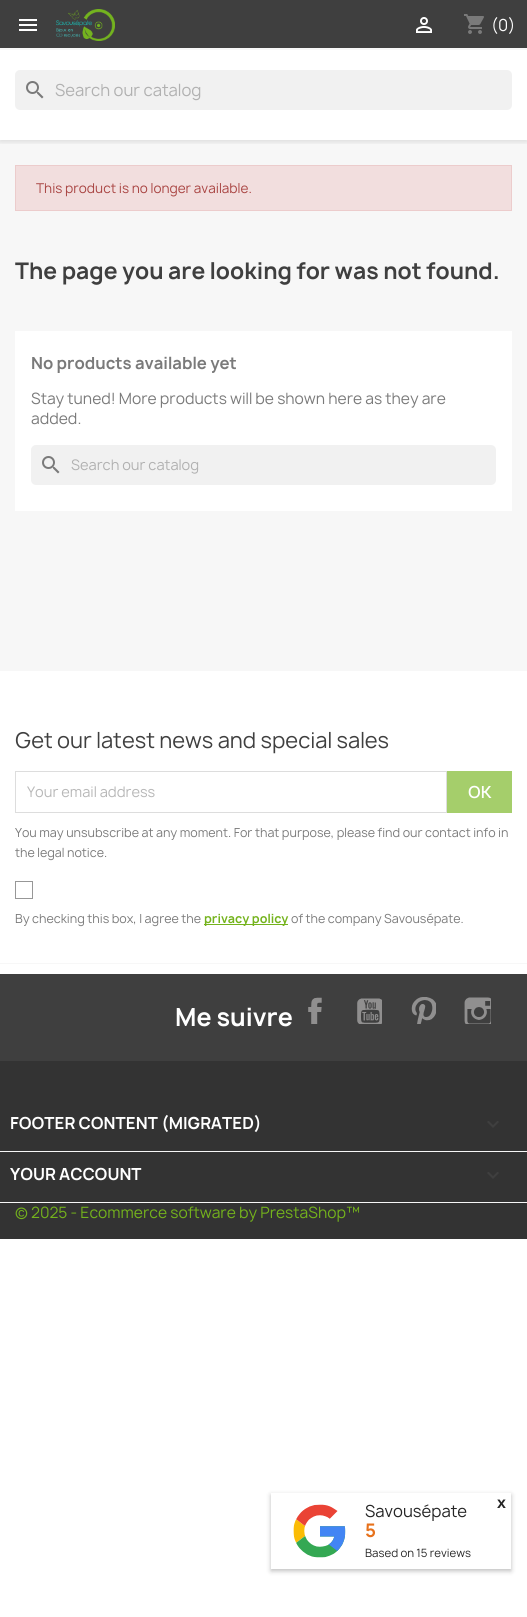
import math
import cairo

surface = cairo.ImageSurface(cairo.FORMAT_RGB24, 527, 1617)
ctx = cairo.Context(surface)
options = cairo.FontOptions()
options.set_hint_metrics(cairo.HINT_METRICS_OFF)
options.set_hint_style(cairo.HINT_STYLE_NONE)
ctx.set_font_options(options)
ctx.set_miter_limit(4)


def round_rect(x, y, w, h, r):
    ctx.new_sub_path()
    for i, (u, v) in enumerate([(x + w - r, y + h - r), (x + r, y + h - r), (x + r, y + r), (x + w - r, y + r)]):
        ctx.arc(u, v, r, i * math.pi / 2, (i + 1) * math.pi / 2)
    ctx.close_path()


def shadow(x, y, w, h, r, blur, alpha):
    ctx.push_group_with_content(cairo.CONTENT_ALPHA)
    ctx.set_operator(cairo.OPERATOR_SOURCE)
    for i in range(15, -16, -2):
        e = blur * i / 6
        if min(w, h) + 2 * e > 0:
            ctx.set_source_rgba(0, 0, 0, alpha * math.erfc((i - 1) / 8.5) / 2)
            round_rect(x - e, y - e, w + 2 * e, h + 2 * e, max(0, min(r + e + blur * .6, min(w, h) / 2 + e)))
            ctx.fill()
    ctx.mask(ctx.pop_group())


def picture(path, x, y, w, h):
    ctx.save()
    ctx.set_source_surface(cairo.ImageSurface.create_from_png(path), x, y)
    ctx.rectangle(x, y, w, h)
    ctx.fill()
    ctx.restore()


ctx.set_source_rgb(1, 1, 1)
ctx.paint()
ctx.set_source_rgb(0.965, 0.965, 0.965)
ctx.rectangle(0, 140, 527, 531)
ctx.fill()
ctx.save()
ctx.rectangle(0, 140, 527, 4)
ctx.clip()
ctx.set_source_rgb(0, 0, 0)
shadow(0, 2, 527, 140, 0, 2.5, 0.11)
ctx.restore()
ctx.set_source_rgb(0.247, 0.247, 0.247)
ctx.rectangle(0, 0, 527, 48)
ctx.fill()
ctx.set_source_rgb(0.965, 0.965, 0.965)
ctx.rectangle(0, 48, 527, 2)
ctx.fill()
picture("img1.png", 19, 19, 18, 12)
picture("img2.png", 56, 9, 59, 32)
picture("img3.png", 416, 17, 16, 16)
picture("img4.png", 464, 14, 20, 20)
ctx.select_font_face("Manrope")
ctx.set_font_size(16)
ctx.set_source_rgb(1, 1, 1)
ctx.move_to(491, 31)
ctx.show_text("(0)")
ctx.set_source_rgb(0.945, 0.945, 0.945)
round_rect(15, 70, 497, 40, 5)
ctx.fill()
picture("img5.png", 26, 81, 18, 18)
ctx.set_source_rgb(0.694, 0.694, 0.694)
ctx.move_to(55, 96)
ctx.show_text("Search our catalog")
ctx.set_source_rgb(0.949, 0.871, 0.871)
ctx.rectangle(15.5, 165.5, 496, 45)
ctx.fill_preserve()
ctx.set_source_rgb(0.922, 0.8, 0.8)
ctx.set_line_width(1)
ctx.stroke()
ctx.set_font_size(13)
ctx.set_source_rgb(0.663, 0.267, 0.259)
ctx.move_to(36, 193)
ctx.show_text("This product is no longer available.")
ctx.select_font_face("Manrope", cairo.FONT_SLANT_NORMAL, cairo.FONT_WEIGHT_BOLD)
ctx.set_font_size(22)
ctx.set_source_rgb(0.247, 0.247, 0.247)
ctx.move_to(15, 279)
ctx.show_text("The page you are looking for was not found.")
ctx.set_source_rgb(1, 1, 1)
ctx.rectangle(15, 331, 497, 180)
ctx.fill()
ctx.set_font_size(16)
ctx.set_source_rgb(0.478, 0.478, 0.478)
ctx.move_to(31, 369)
ctx.show_text("No products available yet")
ctx.select_font_face("Manrope")
ctx.set_font_size(15)
ctx.move_to(31, 404)
ctx.show_text("Stay tuned! More products will be shown here as they are")
ctx.move_to(31, 424)
ctx.show_text("added.")
ctx.set_source_rgb(0.945, 0.945, 0.945)
round_rect(31, 445, 465, 40, 5)
ctx.fill()
picture("img5.png", 42, 456, 18, 18)
ctx.set_font_size(14)
ctx.set_source_rgb(0.694, 0.694, 0.694)
ctx.move_to(71, 470)
ctx.show_text("Search our catalog")
ctx.set_source_rgb(0.965, 0.965, 0.965)
ctx.rectangle(0, 963, 527, 1)
ctx.fill()
ctx.set_font_size(21)
ctx.set_source_rgb(0.247, 0.247, 0.247)
ctx.move_to(15, 748)
ctx.show_text("Get our latest news and special sales")
ctx.rectangle(15.5, 771.5, 431, 41)
ctx.set_source_rgb(0.867, 0.867, 0.867)
ctx.stroke()
ctx.set_font_size(14)
ctx.set_source_rgb(0.718, 0.718, 0.718)
ctx.move_to(27, 797)
ctx.show_text("Your email address")
ctx.set_source_rgb(0.647, 0.808, 0.42)
ctx.rectangle(447, 771, 65, 42)
ctx.fill()
ctx.select_font_face("Manrope SemiBold")
ctx.set_font_size(16)
ctx.set_source_rgb(1, 1, 1)
ctx.move_to(468, 798)
ctx.show_text("OK")
ctx.select_font_face("Manrope")
ctx.set_font_size(12)
ctx.set_source_rgb(0.478, 0.478, 0.478)
ctx.move_to(15, 837)
ctx.show_text("You may unsubscribe at any moment. For that purpose, please find our contact info in")
ctx.move_to(15, 857)
ctx.show_text("the legal notice.")
ctx.rectangle(15.5, 881.5, 17, 17)
ctx.set_source_rgb(0.592, 0.592, 0.592)
ctx.stroke()
ctx.set_source_rgb(0.478, 0.478, 0.478)
ctx.move_to(15, 923)
ctx.show_text("By checking this box, I agree the")
ctx.set_source_rgb(0.455, 0.702, 0.11)
ctx.rectangle(204, 924, 84, 1)
ctx.fill()
ctx.select_font_face("Manrope", cairo.FONT_SLANT_NORMAL, cairo.FONT_WEIGHT_BOLD)
ctx.move_to(204, 923)
ctx.show_text("privacy policy")
ctx.select_font_face("Manrope")
ctx.set_source_rgb(0.478, 0.478, 0.478)
ctx.move_to(291, 923)
ctx.show_text("of the company Savousépate.")
ctx.set_source_rgb(0.247, 0.247, 0.247)
ctx.rectangle(0, 974, 527, 87)
ctx.fill()
ctx.select_font_face("Manrope", cairo.FONT_SLANT_NORMAL, cairo.FONT_WEIGHT_BOLD)
ctx.set_font_size(24)
ctx.set_source_rgb(1, 1, 1)
ctx.move_to(175, 1026)
ctx.show_text("Me suivre")
picture("img6.png", 308, 997, 14, 27)
picture("img7.png", 357, 998, 25, 26)
picture("img8.png", 411, 997, 25, 27)
picture("img9.png", 464, 997, 27, 27)
ctx.set_source_rgb(0.2, 0.2, 0.2)
ctx.rectangle(0, 1061, 527, 178)
ctx.fill()
ctx.set_source_rgb(0.965, 0.965, 0.965)
ctx.rectangle(0, 1151, 527, 1)
ctx.fill()
ctx.set_font_size(16)
ctx.set_source_rgb(1, 1, 1)
ctx.move_to(10, 1129)
ctx.show_text("FOOTER CONTENT (MIGRATED)")
picture("img10.png", 487, 1121, 12, 7)
ctx.set_source_rgb(0.965, 0.965, 0.965)
ctx.rectangle(0, 1202, 527, 1)
ctx.fill()
ctx.set_source_rgb(1, 1, 1)
ctx.move_to(10, 1180)
ctx.show_text("YOUR ACCOUNT")
picture("img10.png", 487, 1172, 12, 7)
ctx.select_font_face("Manrope")
ctx.set_font_size(15)
ctx.set_source_rgb(0.455, 0.702, 0.11)
ctx.move_to(15, 1218)
ctx.show_text("© 2025 - Ecommerce software by PrestaShop™")
ctx.save()
ctx.set_fill_rule(cairo.FILL_RULE_EVEN_ODD)
ctx.new_path()
ctx.move_to(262, 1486)
ctx.line_to(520, 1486)
ctx.line_to(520, 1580)
ctx.line_to(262, 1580)
ctx.close_path()
ctx.move_to(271, 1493)
ctx.line_to(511, 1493)
ctx.line_to(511, 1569)
ctx.line_to(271, 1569)
ctx.close_path()
ctx.clip()
ctx.set_source_rgb(0, 0, 0)
shadow(271, 1495, 240, 76, 0, 2.5, 0.26)
ctx.restore()
picture("img11.png", 293, 1504, 53, 54)
ctx.set_font_size(16)
ctx.set_source_rgb(0.145, 0.145, 0.145)
ctx.move_to(365, 1517)
ctx.show_text("Savousépate")
ctx.select_font_face("Manrope", cairo.FONT_SLANT_NORMAL, cairo.FONT_WEIGHT_BOLD)
ctx.set_font_size(18)
ctx.set_source_rgb(0.906, 0.443, 0.106)
ctx.move_to(365, 1537)
ctx.show_text("5")
ctx.select_font_face("Manrope")
ctx.set_font_size(11)
ctx.set_source_rgb(0.145, 0.145, 0.145)
ctx.move_to(365, 1557)
ctx.show_text("Based on 15 reviews")
ctx.select_font_face("Liberation Sans", cairo.FONT_SLANT_NORMAL, cairo.FONT_WEIGHT_BOLD)
ctx.set_font_size(16)
ctx.move_to(497, 1508)
ctx.show_text("x")
surface.write_to_png("page.png")
